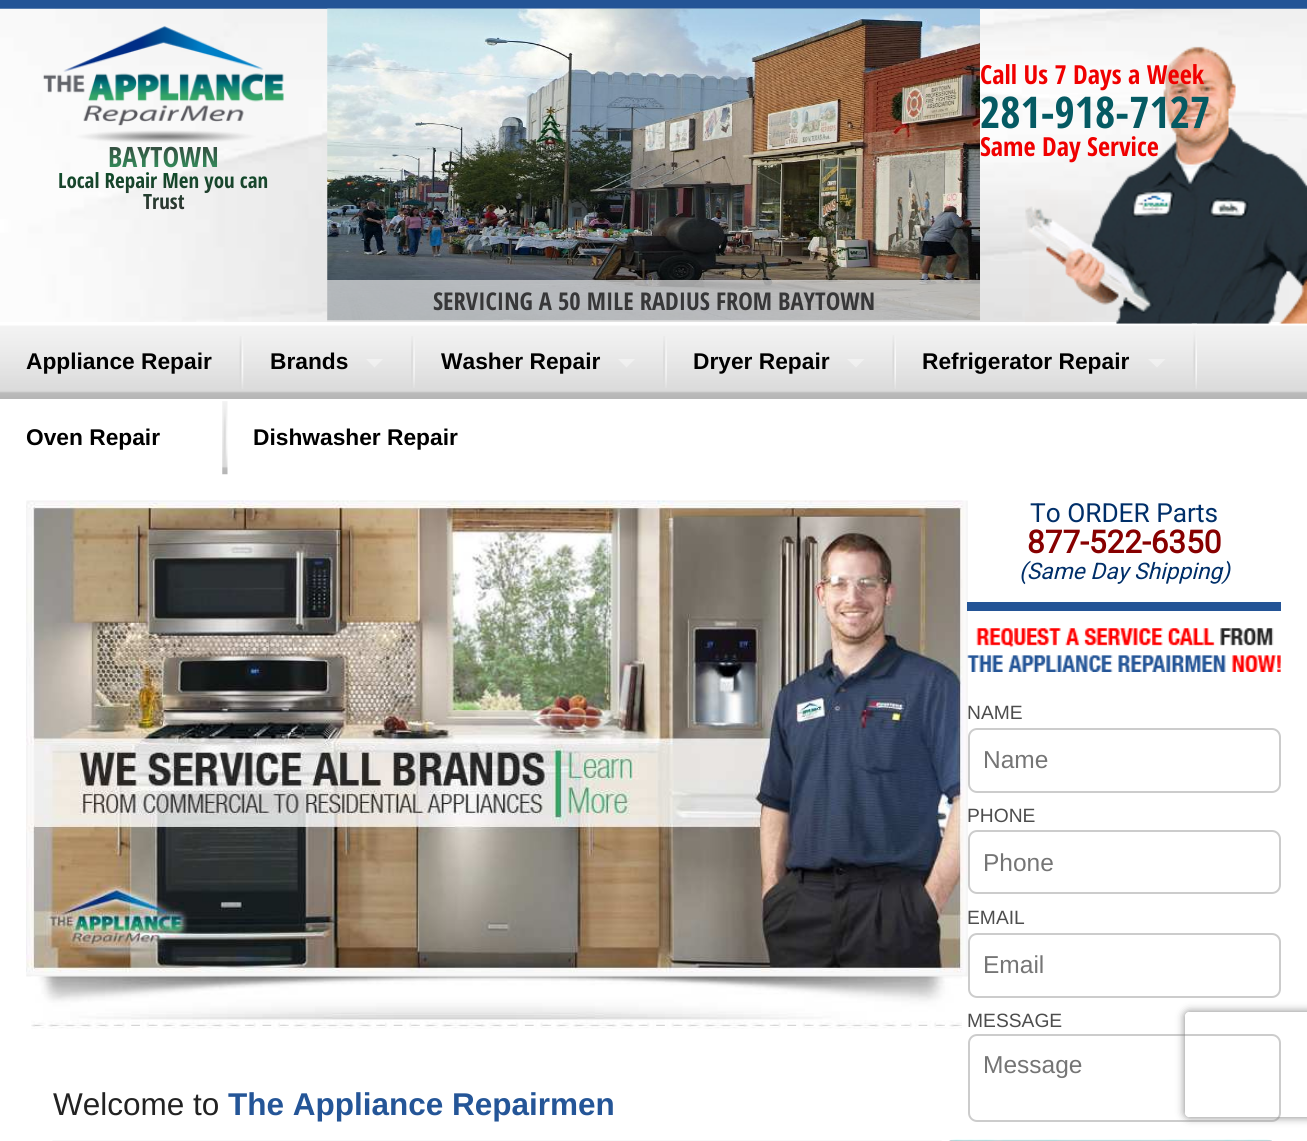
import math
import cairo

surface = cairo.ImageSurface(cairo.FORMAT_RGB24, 1307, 1141)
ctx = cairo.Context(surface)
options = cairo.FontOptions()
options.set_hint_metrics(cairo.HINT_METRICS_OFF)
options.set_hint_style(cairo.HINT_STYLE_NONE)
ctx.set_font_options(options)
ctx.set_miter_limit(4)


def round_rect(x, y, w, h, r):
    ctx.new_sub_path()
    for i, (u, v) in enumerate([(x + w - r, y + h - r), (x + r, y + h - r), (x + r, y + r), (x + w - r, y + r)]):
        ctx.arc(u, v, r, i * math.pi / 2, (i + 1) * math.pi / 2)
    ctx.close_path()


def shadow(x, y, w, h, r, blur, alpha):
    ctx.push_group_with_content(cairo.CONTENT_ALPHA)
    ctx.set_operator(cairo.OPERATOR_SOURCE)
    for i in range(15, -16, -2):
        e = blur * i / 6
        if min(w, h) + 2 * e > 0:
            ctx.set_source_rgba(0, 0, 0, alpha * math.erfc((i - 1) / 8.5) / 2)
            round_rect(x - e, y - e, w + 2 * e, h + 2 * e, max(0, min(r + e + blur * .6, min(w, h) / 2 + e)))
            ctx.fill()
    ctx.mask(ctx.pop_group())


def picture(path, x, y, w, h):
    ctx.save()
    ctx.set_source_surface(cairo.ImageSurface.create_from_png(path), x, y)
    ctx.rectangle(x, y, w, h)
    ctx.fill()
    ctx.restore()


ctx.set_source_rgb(1, 1, 1)
ctx.paint()
ctx.set_source_rgb(0.137, 0.329, 0.588)
ctx.rectangle(0, 0, 1307, 9)
ctx.fill()
picture("img1.png", 0, 8, 1307, 314)
picture("img2.png", 1025, 46, 282, 278)
ctx.select_font_face("Open Sans Condensed", cairo.FONT_SLANT_NORMAL, cairo.FONT_WEIGHT_BOLD)
ctx.set_font_size(26.25)
ctx.set_source_rgb(0.941, 0, 0)
ctx.move_to(980, 84)
ctx.show_text("Call Us 7 Days a Week")
ctx.set_font_size(43.75)
ctx.set_source_rgb(0.02, 0.353, 0.388)
ctx.move_to(980, 128)
ctx.show_text("281-918-7127")
ctx.set_font_size(26.25)
ctx.set_source_rgb(0.941, 0, 0)
ctx.move_to(980, 156)
ctx.show_text("Same Day Service")
picture("img3.png", 43, 26, 241, 117)
ctx.set_font_size(28)
gradient = cairo.LinearGradient(163, 138, 163, 176)
gradient.add_color_stop_rgba(0, 0.2, 0.2, 0.2, 1)
gradient.add_color_stop_rgba(1, 0.204, 0.647, 0.4, 1)
ctx.set_source(gradient)
ctx.move_to(108, 167)
ctx.show_text("BAYTOWN")
ctx.set_font_size(21)
gradient = cairo.LinearGradient(163, 171, 163, 213)
gradient.add_color_stop_rgba(0, 0.051, 0.302, 0.161, 1)
gradient.add_color_stop_rgba(1, 0.2, 0.2, 0.2, 1)
ctx.set_source(gradient)
ctx.move_to(58, 188)
ctx.show_text("Local Repair Men you can")
ctx.move_to(143, 209)
ctx.show_text("Trust")
picture("img4.png", 327, 8, 653, 313)
ctx.set_source_rgba(0.89, 0.89, 0.89, 0.7)
ctx.rectangle(327, 280, 653, 42)
ctx.fill()
ctx.set_font_size(24.5)
ctx.set_source_rgb(0.216, 0.216, 0.22)
ctx.move_to(433, 310)
ctx.show_text("SERVICING A 50 MILE RADIUS FROM BAYTOWN")
picture("img5.png", 0, 323, 1307, 76)
ctx.select_font_face("Liberation Sans", cairo.FONT_SLANT_NORMAL, cairo.FONT_WEIGHT_BOLD)
ctx.set_font_size(22.75)
ctx.set_source_rgb(0, 0, 0)
ctx.move_to(26, 369)
ctx.show_text("Appliance Repair")
picture("img6.png", 239, 336, 5, 53)
ctx.move_to(270, 369)
ctx.show_text("Brands")
ctx.set_source_rgba(1, 1, 1, 0.4)
ctx.new_path()
ctx.move_to(366, 359)
ctx.line_to(383, 359)
ctx.line_to(374.5, 367.5)
ctx.close_path()
ctx.fill()
picture("img7.png", 411, 336, 4, 52)
ctx.set_source_rgb(0, 0, 0)
ctx.move_to(441, 369)
ctx.show_text("Washer Repair")
ctx.set_source_rgba(1, 1, 1, 0.4)
ctx.new_path()
ctx.move_to(618, 359)
ctx.line_to(635, 359)
ctx.line_to(626.5, 367.5)
ctx.close_path()
ctx.fill()
picture("img7.png", 663, 336, 4, 52)
ctx.set_source_rgb(0, 0, 0)
ctx.move_to(693, 369)
ctx.show_text("Dryer Repair")
ctx.set_source_rgba(1, 1, 1, 0.4)
ctx.new_path()
ctx.move_to(847, 359)
ctx.line_to(864.5, 359)
ctx.line_to(856, 367.5)
ctx.close_path()
ctx.fill()
picture("img8.png", 892, 335, 4, 54)
ctx.set_source_rgb(0, 0, 0)
ctx.move_to(922, 369)
ctx.show_text("Refrigerator Repair")
ctx.set_source_rgba(1, 1, 1, 0.4)
ctx.new_path()
ctx.move_to(1148, 359)
ctx.line_to(1165.5, 359)
ctx.line_to(1157, 367.5)
ctx.close_path()
ctx.fill()
picture("img9.png", 1191, 323, 6, 66)
ctx.set_source_rgb(0, 0, 0)
ctx.move_to(26, 445)
ctx.show_text("Oven Repair")
picture("img10.png", 222, 401, 6, 74)
ctx.move_to(253, 445)
ctx.show_text("Dishwasher Repair")
ctx.select_font_face("Roboto")
ctx.set_font_size(26.25)
ctx.set_source_rgb(0, 0.184, 0.412)
ctx.move_to(1030, 522)
ctx.show_text("To ORDER Parts")
ctx.select_font_face("Roboto", cairo.FONT_SLANT_NORMAL, cairo.FONT_WEIGHT_BOLD)
ctx.set_font_size(31.5)
ctx.set_source_rgb(0.529, 0, 0)
ctx.move_to(1027, 553)
ctx.show_text("877-522-6350")
ctx.select_font_face("Roboto", cairo.FONT_SLANT_ITALIC)
ctx.set_font_size(22.75)
ctx.set_source_rgb(0, 0.184, 0.412)
ctx.move_to(1019, 579)
ctx.show_text("(Same Day Shipping)")
picture("img13.png", 26, 500, 942, 477)
ctx.set_source_rgb(0.137, 0.329, 0.588)
ctx.rectangle(967, 602, 314, 9)
ctx.fill()
picture("img11.png", 967, 628, 314, 44)
ctx.select_font_face("Liberation Sans")
ctx.set_font_size(19.25)
ctx.set_source_rgb(0.302, 0.302, 0.302)
ctx.move_to(967, 719)
ctx.show_text("NAME")
round_rect(969, 729, 311, 63, 8)
ctx.set_source_rgb(0.8, 0.8, 0.8)
ctx.stroke()
ctx.set_font_size(24.5)
ctx.set_source_rgb(0.459, 0.459, 0.459)
ctx.move_to(983, 768)
ctx.show_text("Name")
ctx.set_font_size(19.25)
ctx.set_source_rgb(0.302, 0.302, 0.302)
ctx.move_to(967, 822)
ctx.show_text("PHONE")
round_rect(969, 831, 311, 62, 8)
ctx.set_source_rgb(0.8, 0.8, 0.8)
ctx.stroke()
ctx.set_font_size(24.5)
ctx.set_source_rgb(0.459, 0.459, 0.459)
ctx.move_to(983, 871)
ctx.show_text("Phone")
ctx.set_font_size(19.25)
ctx.set_source_rgb(0.302, 0.302, 0.302)
ctx.move_to(967, 924)
ctx.show_text("EMAIL")
round_rect(969, 934, 311, 63, 8)
ctx.set_source_rgb(0.8, 0.8, 0.8)
ctx.stroke()
ctx.set_font_size(24.5)
ctx.set_source_rgb(0.459, 0.459, 0.459)
ctx.move_to(983, 973)
ctx.show_text("Email")
ctx.set_font_size(19.25)
ctx.set_source_rgb(0.302, 0.302, 0.302)
ctx.move_to(967, 1027)
ctx.show_text("MESSAGE")
round_rect(969, 1035, 311, 86, 8)
ctx.set_source_rgb(0.8, 0.8, 0.8)
ctx.stroke()
ctx.set_font_size(24.5)
ctx.set_source_rgb(0.459, 0.459, 0.459)
ctx.move_to(983, 1073)
ctx.show_text("Message")
picture("img12.png", 949, 1139, 323, 2)
picture("img14.png", 31, 976, 931, 53)
picture("img15.png", 52, 1140, 890, 1)
ctx.set_font_size(31.5)
ctx.set_source_rgb(0.133, 0.133, 0.133)
ctx.move_to(53, 1115)
ctx.show_text("Welcome to")
ctx.select_font_face("Liberation Sans", cairo.FONT_SLANT_NORMAL, cairo.FONT_WEIGHT_BOLD)
ctx.set_source_rgb(0.141, 0.333, 0.592)
ctx.move_to(228, 1115)
ctx.show_text("The Appliance Repairmen")
ctx.save()
ctx.set_fill_rule(cairo.FILL_RULE_EVEN_ODD)
ctx.new_path()
ctx.move_to(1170, 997)
ctx.line_to(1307, 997)
ctx.line_to(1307, 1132)
ctx.line_to(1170, 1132)
ctx.close_path()
ctx.move_to(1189, 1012)
ctx.line_to(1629, 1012)
ctx.curve_to(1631, 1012, 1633, 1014, 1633, 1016)
ctx.line_to(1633, 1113)
ctx.curve_to(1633, 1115, 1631, 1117, 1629, 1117)
ctx.line_to(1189, 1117)
ctx.curve_to(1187, 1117, 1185, 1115, 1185, 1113)
ctx.line_to(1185, 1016)
ctx.curve_to(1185, 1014, 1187, 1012, 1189, 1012)
ctx.close_path()
ctx.clip()
ctx.set_source_rgb(0.502, 0.502, 0.502)
shadow(1185, 1012, 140, 105, 4, 4.5, 1)
ctx.restore()
surface.write_to_png("page.png")
